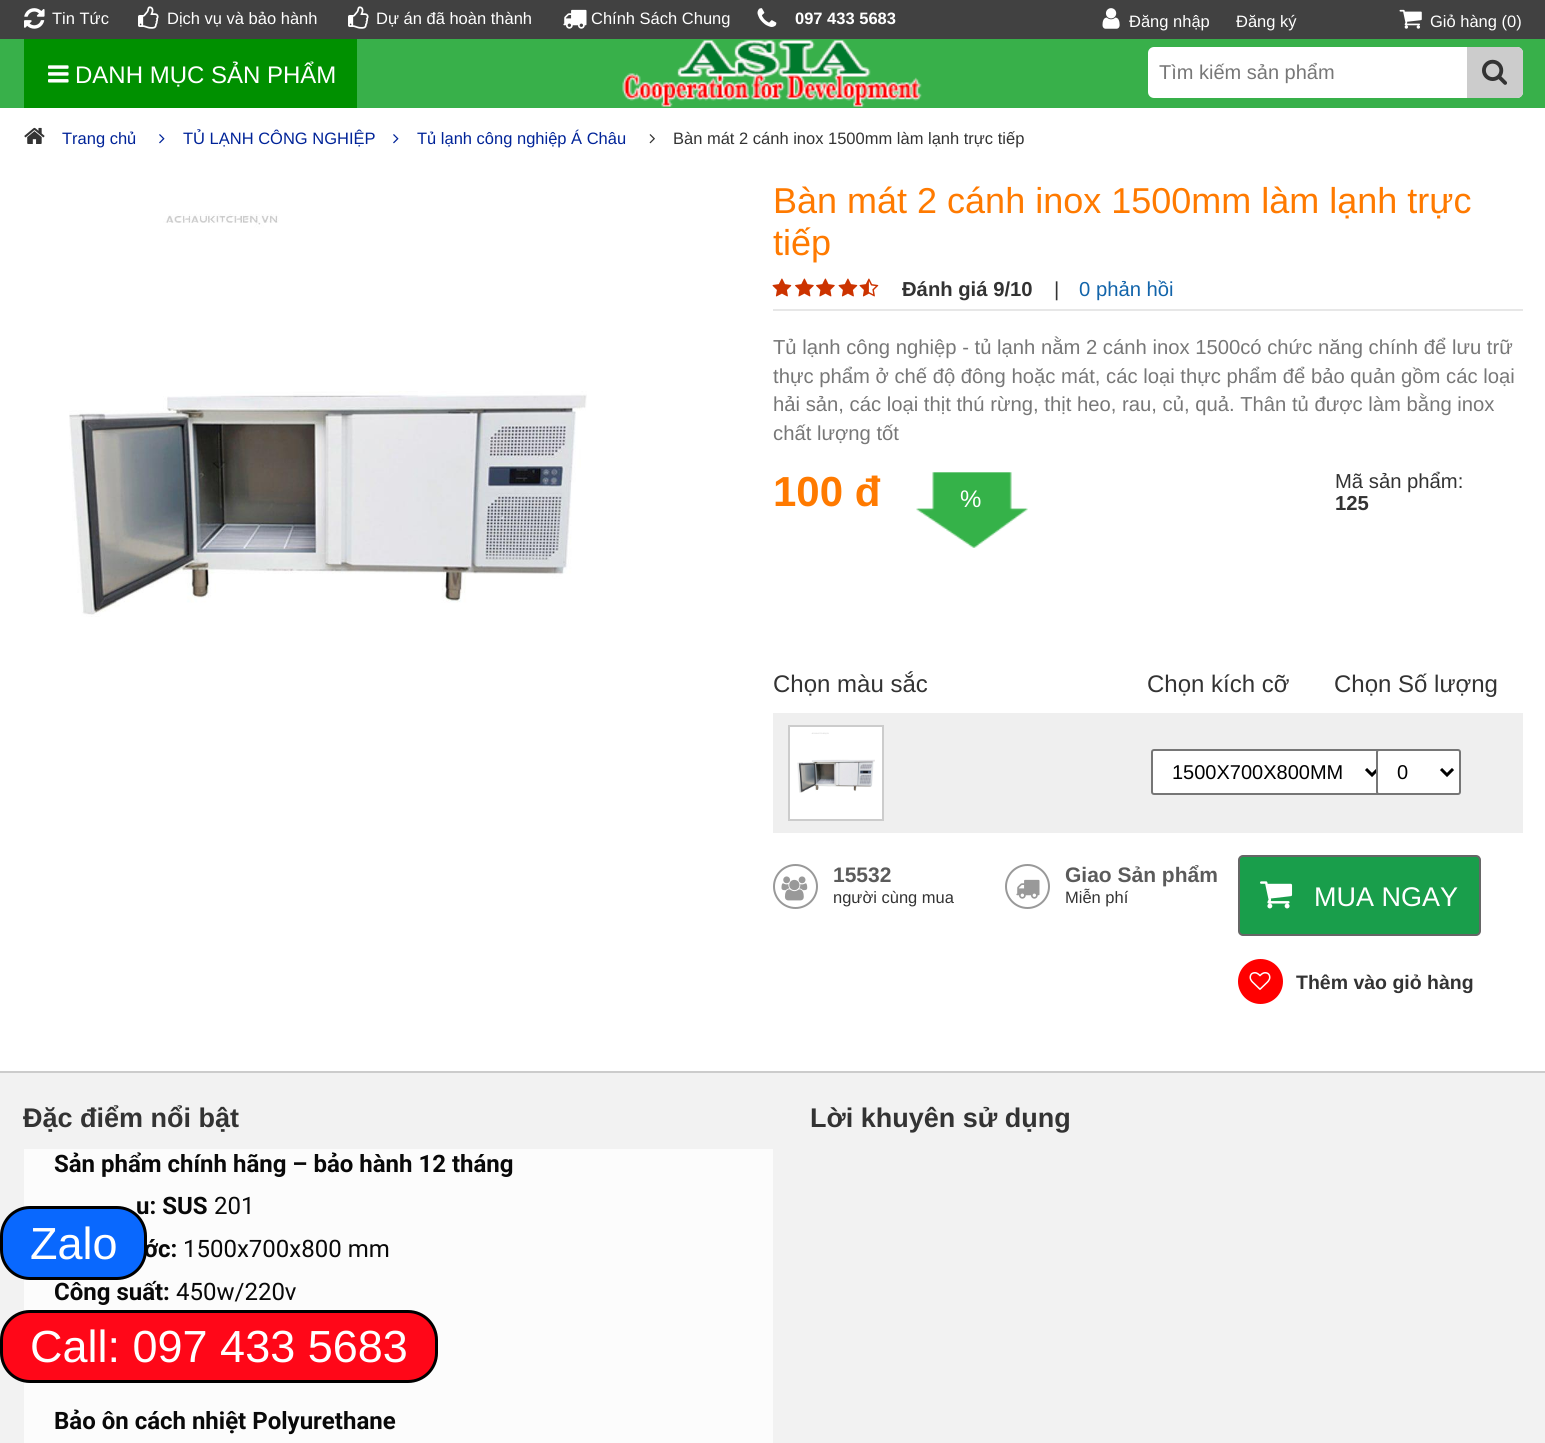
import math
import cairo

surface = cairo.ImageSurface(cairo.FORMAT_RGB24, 1545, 1443)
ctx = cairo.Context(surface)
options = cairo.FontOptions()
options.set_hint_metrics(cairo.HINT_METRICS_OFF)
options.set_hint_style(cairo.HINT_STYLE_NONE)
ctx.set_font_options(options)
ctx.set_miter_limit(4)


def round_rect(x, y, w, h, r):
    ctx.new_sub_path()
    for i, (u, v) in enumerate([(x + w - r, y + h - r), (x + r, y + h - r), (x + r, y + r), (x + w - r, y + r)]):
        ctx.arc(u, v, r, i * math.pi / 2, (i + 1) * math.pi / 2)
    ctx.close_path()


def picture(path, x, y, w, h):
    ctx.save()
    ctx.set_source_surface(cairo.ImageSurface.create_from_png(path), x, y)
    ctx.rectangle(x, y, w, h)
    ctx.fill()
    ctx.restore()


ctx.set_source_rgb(1, 1, 1)
ctx.paint()
ctx.set_source_rgb(0.255, 0.255, 0.255)
ctx.rectangle(0, 0, 1545, 39)
ctx.fill()
picture("img1.png", 24, 8, 21, 21)
ctx.select_font_face("Liberation Sans")
ctx.set_font_size(16.5)
ctx.set_source_rgb(1, 1, 1)
ctx.move_to(52, 24)
ctx.show_text("Tin Tức")
picture("img2.png", 138, 6, 21, 23)
ctx.move_to(167, 24)
ctx.show_text("Dịch vụ và bảo hành")
picture("img2.png", 348, 6, 21, 23)
ctx.move_to(376, 24)
ctx.show_text("Dự án đã hoàn thành")
picture("img3.png", 563, 9, 24, 20)
ctx.move_to(591, 24)
ctx.show_text("Chính Sách Chung")
picture("img4.png", 757, 8, 20, 19)
ctx.select_font_face("Liberation Sans", cairo.FONT_SLANT_NORMAL, cairo.FONT_WEIGHT_BOLD)
ctx.move_to(795, 24)
ctx.show_text("097 433 5683")
picture("img5.png", 1102, 8, 18, 21)
ctx.select_font_face("Liberation Sans")
ctx.move_to(1129, 27)
ctx.show_text("Đăng nhập")
ctx.move_to(1236, 27)
ctx.show_text("Đăng ký")
picture("img6.png", 1399, 9, 23, 20)
ctx.move_to(1430, 27)
ctx.show_text("Giỏ hàng (0)")
ctx.set_source_rgb(0.22, 0.69, 0.29)
ctx.rectangle(0, 39, 1545, 69)
ctx.fill()
ctx.set_source_rgb(0, 0.565, 0)
ctx.rectangle(24, 39, 333, 69)
ctx.fill()
picture("img7.png", 48, 65, 21, 18)
ctx.set_font_size(24)
ctx.set_source_rgb(1, 1, 1)
ctx.move_to(75, 83)
ctx.show_text("DANH MỤC SẢN PHẨM")
picture("img8.png", 622, 40, 300, 67)
round_rect(1148, 47, 375, 51, 6)
ctx.fill()
ctx.set_font_size(20)
ctx.set_source_rgb(0.467, 0.467, 0.467)
ctx.move_to(1159, 79)
ctx.show_text("Tìm kiếm sản phẩm")
ctx.set_source_rgb(0.8, 0.8, 0.8)
ctx.new_path()
ctx.move_to(1467, 47)
ctx.line_to(1517, 47)
ctx.curve_to(1520.5, 47, 1523, 49.5, 1523, 53)
ctx.line_to(1523, 92)
ctx.curve_to(1523, 95.5, 1520.5, 98, 1517, 98)
ctx.line_to(1467, 98)
ctx.close_path()
ctx.fill()
picture("img9.png", 1482, 59, 25, 26)
picture("img10.png", 24, 127, 21, 17)
ctx.set_font_size(16.5)
ctx.set_source_rgb(0, 0.137, 0.596)
ctx.move_to(62, 144)
ctx.show_text("Trang chủ")
picture("img11.png", 159, 134, 6, 10)
ctx.move_to(183, 144)
ctx.show_text("TỦ LẠNH CÔNG NGHIỆP")
picture("img11.png", 393, 134, 6, 10)
ctx.move_to(417, 144)
ctx.show_text("Tủ lạnh công nghiệp Á Châu")
picture("img12.png", 649, 134, 6, 10)
ctx.set_source_rgb(0.2, 0.2, 0.2)
ctx.move_to(673, 144)
ctx.show_text("Bàn mát 2 cánh inox 1500mm làm lạnh trực tiếp")
picture("img13.png", 69, 214, 518, 403)
ctx.set_font_size(36)
ctx.set_source_rgb(1, 0.478, 0)
ctx.move_to(773, 213)
ctx.show_text("Bàn mát 2 cánh inox 1500mm làm lạnh trực")
ctx.move_to(773, 255)
ctx.show_text("tiếp")
ctx.set_source_rgb(0.906, 0.906, 0.906)
ctx.rectangle(773, 309, 750, 2)
ctx.fill()
picture("img14.png", 772, 278, 20, 19)
picture("img15.png", 795, 278, 19, 19)
picture("img15.png", 816, 278, 19, 19)
picture("img14.png", 838, 278, 20, 19)
picture("img16.png", 859, 278, 20, 19)
ctx.select_font_face("Liberation Sans", cairo.FONT_SLANT_NORMAL, cairo.FONT_WEIGHT_BOLD)
ctx.set_font_size(20.25)
ctx.set_source_rgb(0.2, 0.2, 0.2)
ctx.move_to(902, 296)
ctx.show_text("Đánh giá 9/10")
ctx.select_font_face("Liberation Sans")
ctx.move_to(1054, 296)
ctx.show_text("|")
ctx.set_source_rgb(0.071, 0.392, 0.667)
ctx.move_to(1079, 296)
ctx.show_text("0 phản hồi")
ctx.set_source_rgb(0.467, 0.467, 0.467)
ctx.move_to(773, 354)
ctx.show_text("Tủ lạnh công nghiệp - tủ lạnh nằm 2 cánh inox 1500có chức năng chính để lưu trữ")
ctx.move_to(773, 383)
ctx.show_text("thực phẩm ở chế độ đông hoặc mát, các loại thực phẩm để bảo quản gồm các loại")
ctx.move_to(773, 411)
ctx.show_text("hải sản, các loại thịt thú rừng, thịt heo, rau, củ, quả. Thân tủ được làm bằng inox")
ctx.move_to(773, 440)
ctx.show_text("chất lượng tốt")
ctx.select_font_face("Liberation Sans", cairo.FONT_SLANT_NORMAL, cairo.FONT_WEIGHT_BOLD)
ctx.set_font_size(42)
ctx.set_source_rgb(1, 0.478, 0)
ctx.move_to(773, 506)
ctx.show_text("100 đ")
picture("img17.png", 916, 472, 112, 76)
ctx.select_font_face("Liberation Sans")
ctx.set_font_size(24)
ctx.set_source_rgb(1, 1, 1)
ctx.move_to(960, 507)
ctx.show_text("%")
ctx.set_font_size(20.25)
ctx.set_source_rgb(0.2, 0.2, 0.2)
ctx.move_to(1335, 488)
ctx.show_text("Mã sản phẩm:")
ctx.select_font_face("Liberation Sans", cairo.FONT_SLANT_NORMAL, cairo.FONT_WEIGHT_BOLD)
ctx.move_to(1335, 510)
ctx.show_text("125")
ctx.select_font_face("Liberation Sans")
ctx.set_font_size(24)
ctx.move_to(773, 692)
ctx.show_text("Chọn màu sắc")
ctx.move_to(1147, 692)
ctx.show_text("Chọn kích cỡ")
ctx.move_to(1334, 692)
ctx.show_text("Chọn Số lượng")
ctx.set_source_rgb(0.937, 0.937, 0.937)
ctx.rectangle(773, 713, 750, 120)
ctx.fill()
ctx.set_source_rgb(1, 1, 1)
ctx.rectangle(789, 726, 94, 94)
ctx.fill_preserve()
ctx.set_source_rgb(0.8, 0.8, 0.8)
ctx.stroke()
picture("img18.png", 797, 732, 78, 61)
ctx.set_source_rgb(1, 1, 1)
round_rect(1152, 750, 233, 44, 2)
ctx.fill_preserve()
ctx.set_source_rgb(0.463, 0.463, 0.463)
ctx.stroke()
ctx.new_path()
ctx.move_to(1366, 769)
ctx.line_to(1372, 775)
ctx.line_to(1378, 769)
ctx.set_source_rgb(0, 0, 0)
ctx.set_line_width(3)
ctx.stroke()
ctx.set_font_size(20)
ctx.move_to(1172, 779)
ctx.show_text("1500X700X800MM")
ctx.set_source_rgb(1, 1, 1)
round_rect(1377, 750, 83, 44, 2)
ctx.fill_preserve()
ctx.set_source_rgb(0.463, 0.463, 0.463)
ctx.set_line_width(2)
ctx.stroke()
ctx.new_path()
ctx.move_to(1441, 769)
ctx.line_to(1447, 775)
ctx.line_to(1453, 769)
ctx.set_source_rgb(0, 0, 0)
ctx.set_line_width(3)
ctx.stroke()
ctx.move_to(1397, 779)
ctx.show_text("0")
ctx.new_path()
ctx.arc(795.5, 886.5, 21.5, 0, 2 * math.pi)
ctx.set_source_rgb(0.6, 0.6, 0.6)
ctx.set_line_width(2)
ctx.stroke()
picture("img19.png", 781, 876, 27, 25)
ctx.select_font_face("Liberation Sans", cairo.FONT_SLANT_NORMAL, cairo.FONT_WEIGHT_BOLD)
ctx.set_font_size(21)
ctx.set_source_rgb(0.357, 0.357, 0.357)
ctx.move_to(833, 882)
ctx.show_text("15532")
ctx.select_font_face("Liberation Sans")
ctx.set_font_size(16.5)
ctx.set_source_rgb(0.2, 0.2, 0.2)
ctx.move_to(833, 903)
ctx.show_text("người cùng mua")
ctx.new_path()
ctx.arc(1027.5, 886.5, 21.5, 0, 2 * math.pi)
ctx.set_source_rgb(0.6, 0.6, 0.6)
ctx.stroke()
picture("img20.png", 1016, 879, 24, 20)
ctx.select_font_face("Liberation Sans", cairo.FONT_SLANT_NORMAL, cairo.FONT_WEIGHT_BOLD)
ctx.set_font_size(21)
ctx.set_source_rgb(0.357, 0.357, 0.357)
ctx.move_to(1065, 882)
ctx.show_text("Giao Sản phẩm")
ctx.select_font_face("Liberation Sans")
ctx.set_font_size(16.5)
ctx.set_source_rgb(0.2, 0.2, 0.2)
ctx.move_to(1065, 903)
ctx.show_text("Miễn phí")
ctx.set_source_rgb(0.098, 0.62, 0.294)
round_rect(1239, 856, 241, 79, 4)
ctx.fill_preserve()
ctx.set_source_rgb(0.4, 0.4, 0.4)
ctx.stroke()
picture("img21.png", 1260, 881, 33, 28)
ctx.set_font_size(27)
ctx.set_source_rgb(1, 1, 1)
ctx.move_to(1314, 906)
ctx.show_text("MUA NGAY")
ctx.set_source_rgb(1, 0, 0)
ctx.new_path()
ctx.arc(1260.5, 981.5, 22.5, 0, 2 * math.pi)
ctx.fill()
picture("img22.png", 1249, 972, 22, 18)
ctx.select_font_face("Liberation Sans", cairo.FONT_SLANT_NORMAL, cairo.FONT_WEIGHT_BOLD)
ctx.set_font_size(19.5)
ctx.set_source_rgb(0.2, 0.2, 0.2)
ctx.move_to(1296, 989)
ctx.show_text("Thêm vào giỏ hàng")
ctx.set_source_rgb(0.949, 0.949, 0.949)
ctx.rectangle(0, 1073, 1545, 370)
ctx.fill()
ctx.set_source_rgb(0.8, 0.8, 0.8)
ctx.rectangle(0, 1071, 1545, 2)
ctx.fill()
ctx.set_font_size(27)
ctx.set_source_rgb(0.2, 0.2, 0.2)
ctx.move_to(23, 1127)
ctx.show_text("Đặc điểm nổi bật")
ctx.set_source_rgb(0.988, 0.988, 0.988)
ctx.rectangle(24, 1149, 749, 294)
ctx.fill()
ctx.select_font_face("Roboto", cairo.FONT_SLANT_NORMAL, cairo.FONT_WEIGHT_BOLD)
ctx.set_font_size(24)
ctx.set_source_rgb(0.039, 0.039, 0.039)
ctx.move_to(54, 1172)
ctx.show_text("Sản phẩm chính hãng – bảo hành 12 tháng")
ctx.move_to(136, 1214)
ctx.show_text("u: SUS")
ctx.select_font_face("Roboto")
ctx.move_to(214, 1214)
ctx.show_text("201")
ctx.select_font_face("Roboto", cairo.FONT_SLANT_NORMAL, cairo.FONT_WEIGHT_BOLD)
ctx.move_to(144, 1257)
ctx.show_text("ớc:")
ctx.select_font_face("Roboto")
ctx.move_to(183, 1257)
ctx.show_text("1500x700x800 mm")
ctx.select_font_face("Roboto", cairo.FONT_SLANT_NORMAL, cairo.FONT_WEIGHT_BOLD)
ctx.move_to(54, 1300)
ctx.show_text("Công suất:")
ctx.select_font_face("Roboto")
ctx.move_to(176, 1300)
ctx.show_text("450w/220v")
ctx.select_font_face("Roboto", cairo.FONT_SLANT_NORMAL, cairo.FONT_WEIGHT_BOLD)
ctx.move_to(54, 1429)
ctx.show_text("Bảo ôn cách nhiệt Polyurethane")
ctx.select_font_face("Liberation Sans", cairo.FONT_SLANT_NORMAL, cairo.FONT_WEIGHT_BOLD)
ctx.set_font_size(27)
ctx.set_source_rgb(0.2, 0.2, 0.2)
ctx.move_to(810, 1127)
ctx.show_text("Lời khuyên sử dụng")
ctx.set_source_rgb(0.039, 0.408, 0.996)
round_rect(1.5, 1207.5, 144, 71, 28.5)
ctx.fill_preserve()
ctx.set_source_rgb(0, 0, 0)
ctx.set_line_width(3)
ctx.stroke()
ctx.select_font_face("Liberation Sans")
ctx.set_font_size(45)
ctx.set_source_rgb(1, 1, 1)
ctx.move_to(30, 1259)
ctx.show_text("Zalo")
ctx.set_source_rgb(1, 0.031, 0.094)
round_rect(1.5, 1311.5, 435, 70, 28.5)
ctx.fill_preserve()
ctx.set_source_rgb(0, 0, 0)
ctx.stroke()
ctx.set_source_rgb(1, 1, 1)
ctx.move_to(30, 1362)
ctx.show_text("Call: 097 433 5683")
surface.write_to_png("page.png")
